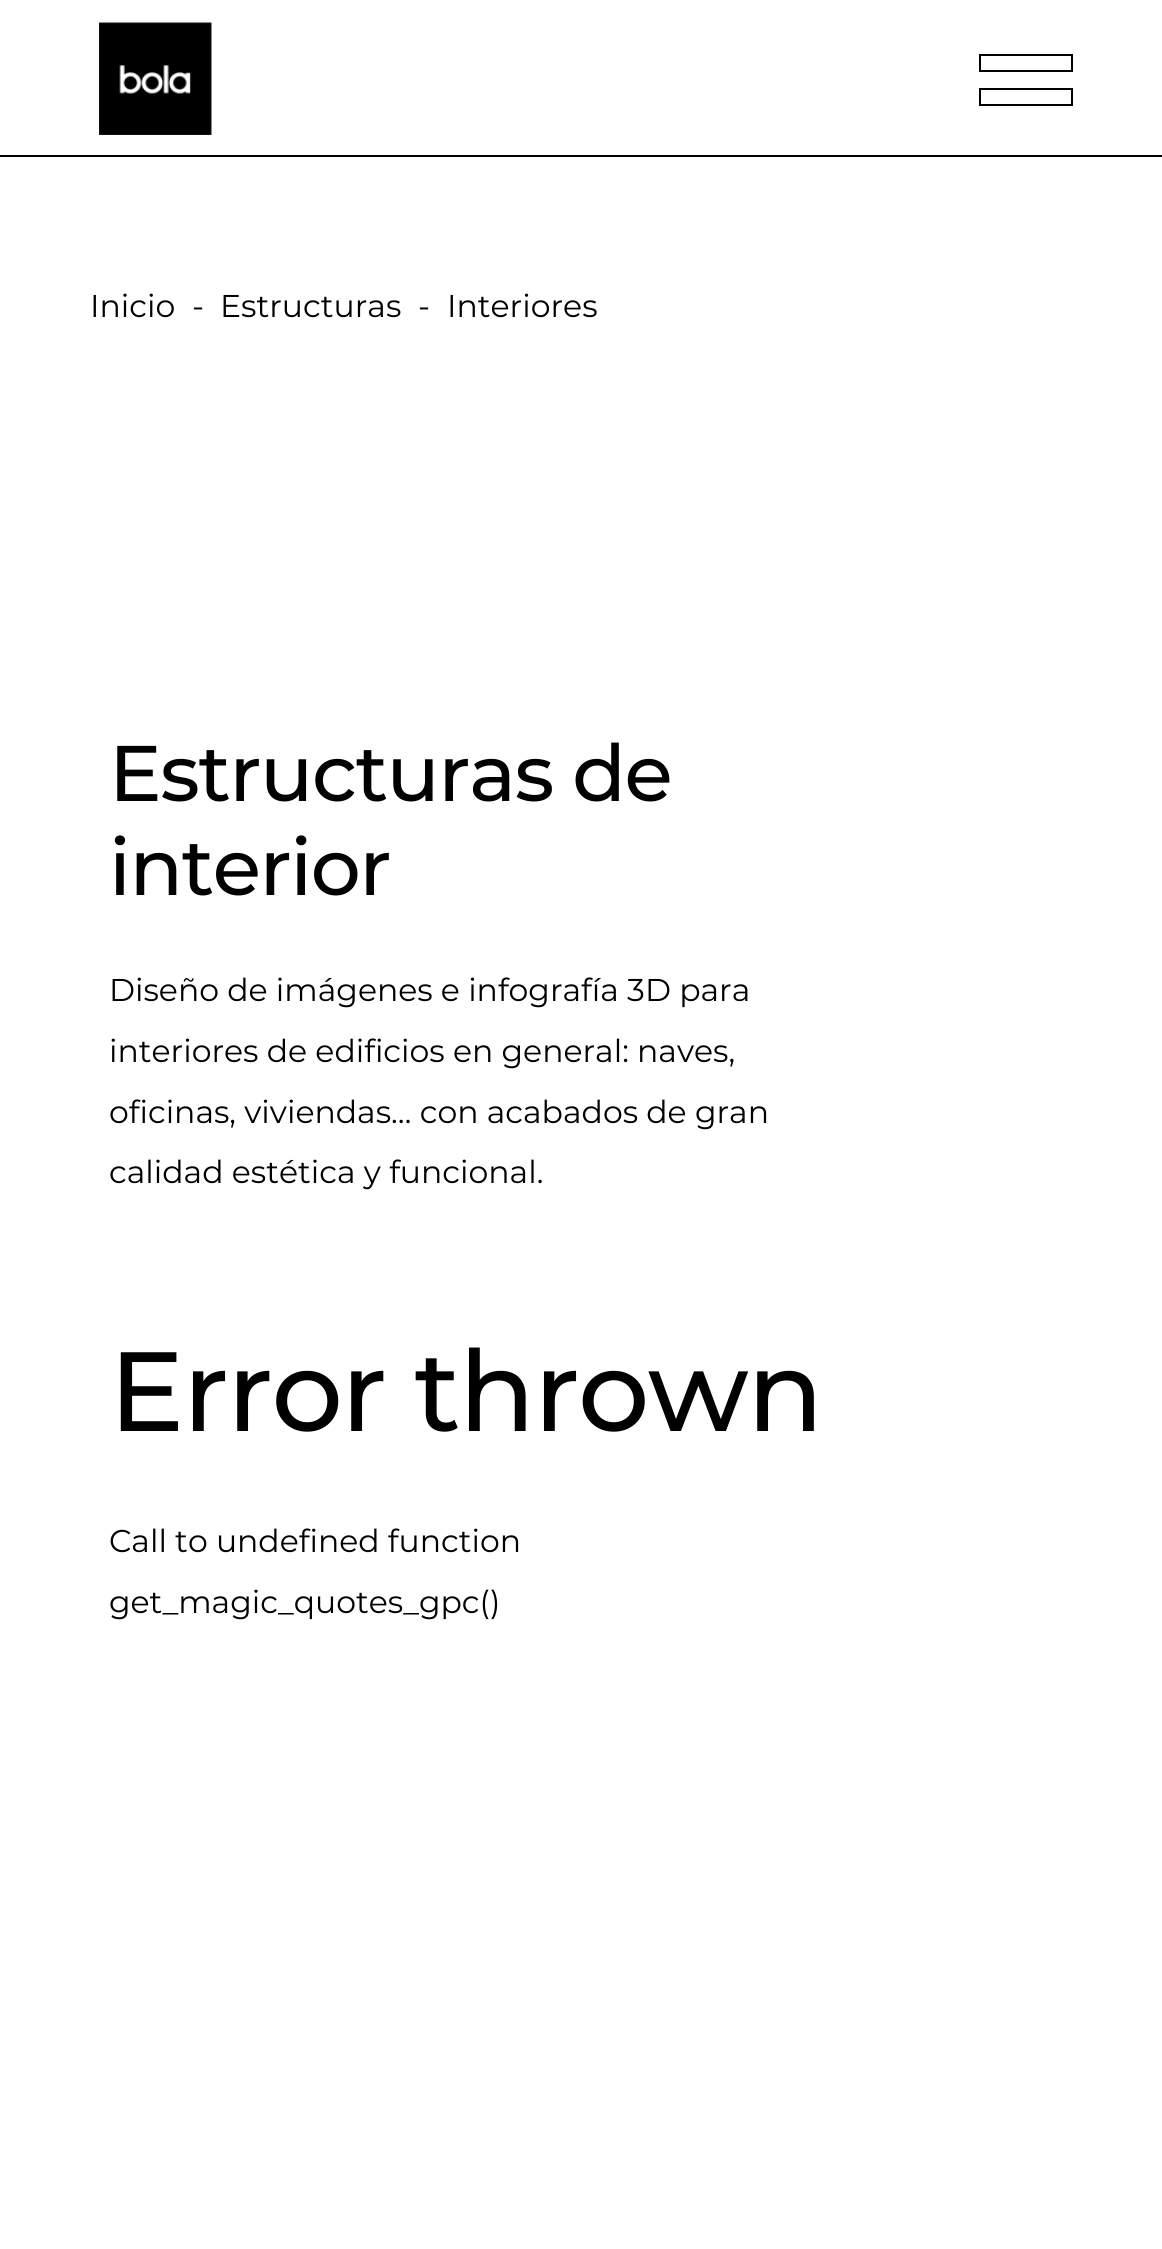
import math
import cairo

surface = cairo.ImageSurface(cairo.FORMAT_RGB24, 1162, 2249)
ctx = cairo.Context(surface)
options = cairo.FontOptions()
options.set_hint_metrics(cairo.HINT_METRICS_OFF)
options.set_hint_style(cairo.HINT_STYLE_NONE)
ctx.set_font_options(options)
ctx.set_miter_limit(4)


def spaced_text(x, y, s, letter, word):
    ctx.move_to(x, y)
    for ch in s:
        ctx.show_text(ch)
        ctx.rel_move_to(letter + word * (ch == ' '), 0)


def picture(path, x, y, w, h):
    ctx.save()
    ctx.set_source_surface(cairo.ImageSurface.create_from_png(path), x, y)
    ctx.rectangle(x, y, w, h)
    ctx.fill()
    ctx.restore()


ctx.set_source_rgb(1, 1, 1)
ctx.paint()
ctx.set_source_rgb(0, 0, 0)
ctx.rectangle(0, 155, 1162, 2)
ctx.fill()
picture("img1.png", 99, 22, 113, 113)
ctx.rectangle(980, 55, 92, 16)
ctx.stroke()
ctx.rectangle(980, 89, 92, 16)
ctx.stroke()
ctx.select_font_face("Montserrat")
ctx.set_font_size(31.5)
ctx.move_to(90, 317)
ctx.show_text("Inicio")
ctx.move_to(192, 317)
ctx.show_text("-")
ctx.move_to(220, 317)
ctx.show_text("Estructuras")
ctx.move_to(418, 317)
ctx.show_text("-")
ctx.move_to(447, 317)
ctx.show_text("Interiores")
ctx.select_font_face("Montserrat Medium")
ctx.set_font_size(78.75)
spaced_text(109, 801, "Estructuras de", -1.5, 0)
spaced_text(109, 895, "interior", -1.5, 0)
ctx.select_font_face("Montserrat")
ctx.set_font_size(31.5)
ctx.move_to(109, 1001)
ctx.show_text("Diseño de imágenes e infografía 3D para")
ctx.move_to(109, 1062)
ctx.show_text("interiores de edificios en general: naves,")
ctx.move_to(109, 1123)
ctx.show_text("oficinas, viviendas… con acabados de gran")
ctx.move_to(109, 1183)
ctx.show_text("calidad estética y funcional.")
ctx.select_font_face("Montserrat Medium")
ctx.set_font_size(112.5)
spaced_text(109, 1431, "Error thrown", -1.75, 0)
ctx.select_font_face("Montserrat")
ctx.set_font_size(31.5)
ctx.move_to(109, 1552)
ctx.show_text("Call to undefined function")
ctx.move_to(109, 1613)
ctx.show_text("get_magic_quotes_gpc()")
surface.write_to_png("page.png")
